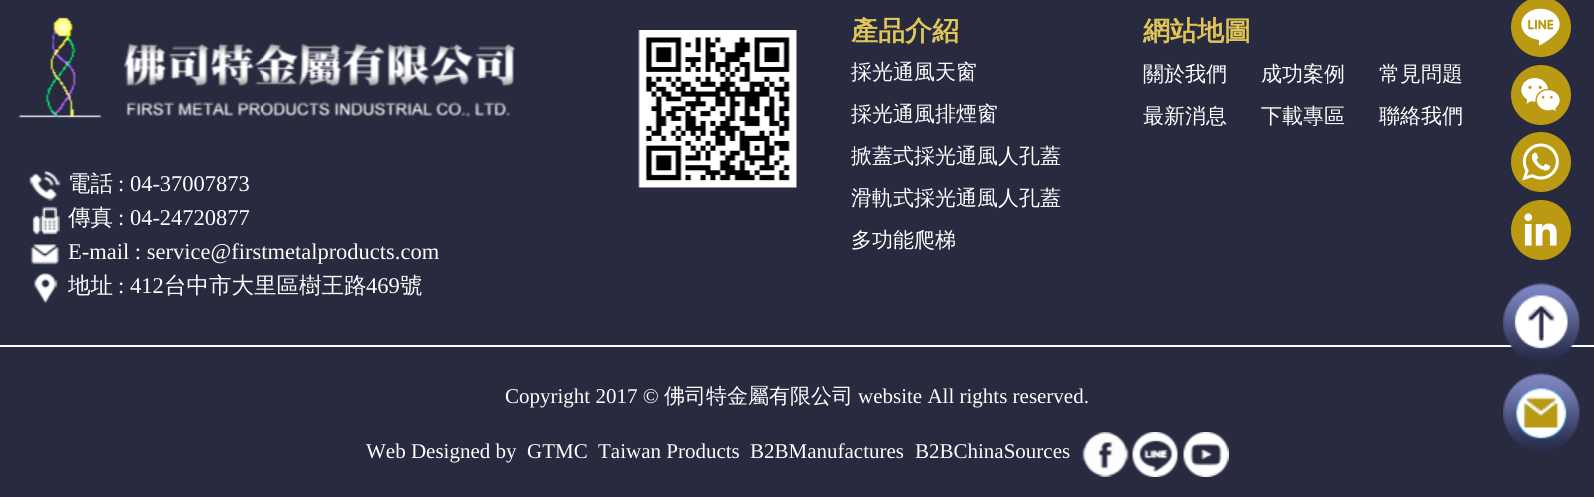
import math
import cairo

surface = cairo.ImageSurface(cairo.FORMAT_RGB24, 1594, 497)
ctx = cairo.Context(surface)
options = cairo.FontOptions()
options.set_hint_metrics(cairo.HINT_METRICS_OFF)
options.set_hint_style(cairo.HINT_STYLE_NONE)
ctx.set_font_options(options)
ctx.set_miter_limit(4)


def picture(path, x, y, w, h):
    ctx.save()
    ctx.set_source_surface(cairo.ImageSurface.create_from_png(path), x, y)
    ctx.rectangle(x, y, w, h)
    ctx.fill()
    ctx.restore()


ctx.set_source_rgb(0.157, 0.165, 0.247)
ctx.paint()
picture("img1.png", 638, 30, 159, 158)
ctx.select_font_face("WenQuanYi Zen Hei", cairo.FONT_SLANT_NORMAL, cairo.FONT_WEIGHT_BOLD)
ctx.set_font_size(27)
ctx.set_source_rgb(0.882, 0.776, 0.341)
ctx.move_to(851, 40)
ctx.show_text("產品介紹")
ctx.select_font_face("WenQuanYi Zen Hei Medium")
ctx.set_font_size(21)
ctx.set_source_rgb(1, 1, 1)
ctx.move_to(851, 79)
ctx.show_text("採光通風天窗")
ctx.move_to(851, 121)
ctx.show_text("採光通風排煙窗")
ctx.move_to(851, 163)
ctx.show_text("掀蓋式採光通風人孔蓋")
ctx.move_to(851, 205)
ctx.show_text("滑軌式採光通風人孔蓋")
ctx.move_to(851, 247)
ctx.show_text("多功能爬梯")
ctx.select_font_face("WenQuanYi Zen Hei", cairo.FONT_SLANT_NORMAL, cairo.FONT_WEIGHT_BOLD)
ctx.set_font_size(27)
ctx.set_source_rgb(0.882, 0.776, 0.341)
ctx.move_to(1143, 40)
ctx.show_text("網站地圖")
ctx.select_font_face("WenQuanYi Zen Hei Medium")
ctx.set_font_size(21)
ctx.set_source_rgb(1, 1, 1)
ctx.move_to(1143, 81)
ctx.show_text("關於我們")
ctx.move_to(1261, 81)
ctx.show_text("成功案例")
ctx.move_to(1379, 81)
ctx.show_text("常見問題")
ctx.move_to(1143, 123)
ctx.show_text("最新消息")
ctx.move_to(1261, 123)
ctx.show_text("下載專區")
ctx.move_to(1379, 123)
ctx.show_text("聯絡我們")
picture("img2.png", 18, 17, 84, 101)
picture("img3.png", 123, 43, 392, 75)
ctx.set_source_rgb(0.729, 0.6, 0.075)
ctx.arc(1541, 27, 30, 0, 2 * math.pi)
ctx.fill()
picture("img4.png", 1521, 8, 39, 38)
ctx.arc(1541, 95, 30, 0, 2 * math.pi)
ctx.fill()
picture("img5.png", 1521, 78, 39, 33)
ctx.arc(1541, 162, 30, 0, 2 * math.pi)
ctx.fill()
picture("img6.png", 1522, 143, 37, 38)
ctx.arc(1541, 230, 30, 0, 2 * math.pi)
ctx.fill()
picture("img7.png", 1524, 213, 33, 33)
picture("img8.png", 29, 171, 32, 30)
ctx.set_font_size(22.5)
ctx.set_source_rgb(1, 1, 1)
ctx.move_to(68, 191)
ctx.show_text("電話")
ctx.select_font_face("Liberation Serif")
ctx.move_to(118, 191)
ctx.show_text(": 04-37007873")
picture("img9.png", 32, 206, 28, 29)
ctx.select_font_face("WenQuanYi Zen Hei Medium")
ctx.move_to(68, 225)
ctx.show_text("傳真")
ctx.select_font_face("Liberation Serif")
ctx.move_to(118, 225)
ctx.show_text(": 04-24720877")
picture("img10.png", 30, 244, 30, 21)
ctx.move_to(68, 259)
ctx.show_text("E-mail : service@firstmetalproducts.com")
picture("img11.png", 34, 273, 24, 30)
ctx.select_font_face("WenQuanYi Zen Hei Medium")
ctx.move_to(68, 293)
ctx.show_text("地址")
ctx.select_font_face("Liberation Serif")
ctx.move_to(118, 293)
ctx.show_text(": 412")
ctx.select_font_face("WenQuanYi Zen Hei Medium")
ctx.move_to(164, 293)
ctx.show_text("台中市大里區樹王路")
ctx.select_font_face("Liberation Serif")
ctx.move_to(366, 293)
ctx.show_text("469")
ctx.select_font_face("WenQuanYi Zen Hei Medium")
ctx.move_to(400, 293)
ctx.show_text("號")
ctx.rectangle(0, 345, 1594, 2)
ctx.fill()
ctx.select_font_face("Liberation Serif")
ctx.set_font_size(21)
ctx.move_to(505, 403)
ctx.show_text("Copyright 2017 ©")
ctx.select_font_face("WenQuanYi Zen Hei Medium")
ctx.move_to(664, 403)
ctx.show_text("佛司特金屬有限公司")
ctx.select_font_face("Liberation Serif")
ctx.move_to(858, 403)
ctx.show_text("website All rights reserved.")
ctx.move_to(366, 458)
ctx.show_text("Web Designed by")
ctx.move_to(527, 458)
ctx.show_text("GTMC")
ctx.move_to(598, 458)
ctx.show_text("Taiwan Products")
ctx.move_to(750, 458)
ctx.show_text("B2BManufactures")
ctx.move_to(915, 458)
ctx.show_text("B2BChinaSources")
picture("img12.png", 1082, 432, 47, 45)
picture("img13.png", 1132, 432, 46, 45)
picture("img14.png", 1183, 432, 46, 45)
picture("img15.png", 1503, 283, 77, 80)
picture("img16.png", 1503, 373, 77, 80)
surface.write_to_png("page.png")
